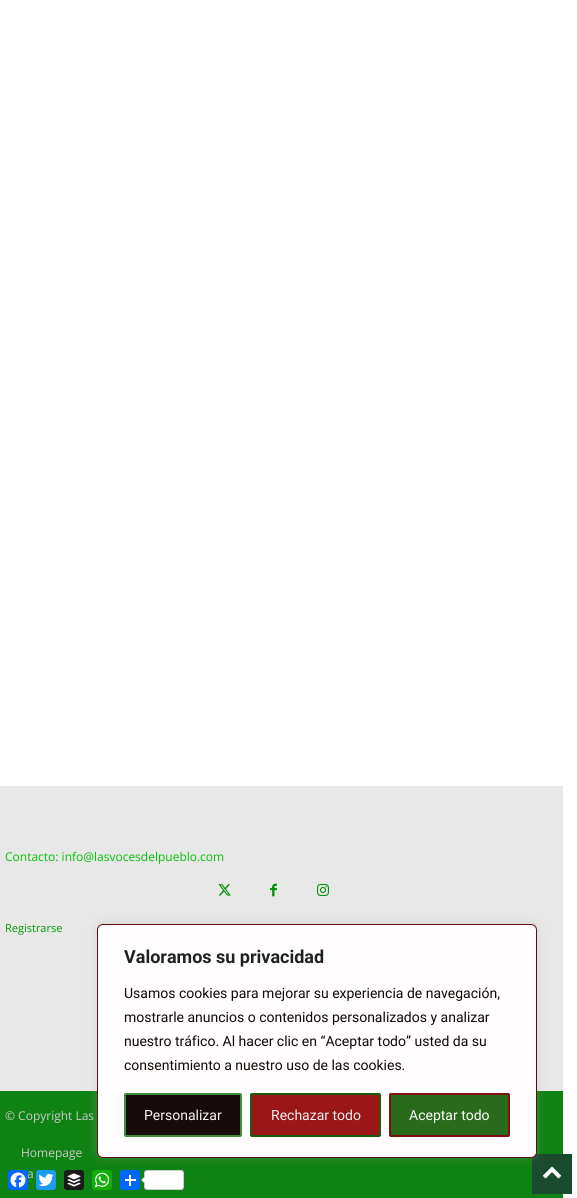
import math
import cairo

surface = cairo.ImageSurface(cairo.FORMAT_RGB24, 577, 1198)
ctx = cairo.Context(surface)
options = cairo.FontOptions()
options.set_hint_metrics(cairo.HINT_METRICS_OFF)
options.set_hint_style(cairo.HINT_STYLE_NONE)
ctx.set_font_options(options)
ctx.set_miter_limit(4)


def round_rect(x, y, w, h, r):
    ctx.new_sub_path()
    for i, (u, v) in enumerate([(x + w - r, y + h - r), (x + r, y + h - r), (x + r, y + r), (x + w - r, y + r)]):
        ctx.arc(u, v, r, i * math.pi / 2, (i + 1) * math.pi / 2)
    ctx.close_path()


def shadow(x, y, w, h, r, blur, alpha):
    ctx.push_group_with_content(cairo.CONTENT_ALPHA)
    ctx.set_operator(cairo.OPERATOR_SOURCE)
    for i in range(15, -16, -2):
        e = blur * i / 6
        if min(w, h) + 2 * e > 0:
            ctx.set_source_rgba(0, 0, 0, alpha * math.erfc((i - 1) / 8.5) / 2)
            round_rect(x - e, y - e, w + 2 * e, h + 2 * e, max(0, min(r + e + blur * .6, min(w, h) / 2 + e)))
            ctx.fill()
    ctx.mask(ctx.pop_group())


def picture(path, x, y, w, h):
    ctx.save()
    ctx.set_source_surface(cairo.ImageSurface.create_from_png(path), x, y)
    ctx.rectangle(x, y, w, h)
    ctx.fill()
    ctx.restore()


ctx.set_source_rgb(1, 1, 1)
ctx.paint()
ctx.set_source_rgb(0.91, 0.91, 0.91)
ctx.rectangle(0, 786, 563, 305)
ctx.fill()
ctx.select_font_face("Open Sans")
ctx.set_font_size(12)
ctx.set_source_rgb(0, 0.769, 0.012)
ctx.move_to(5, 861)
ctx.show_text("Contacto: info@lasvocesdelpueblo.com")
picture("img1.png", 218, 884, 13, 12)
picture("img2.png", 270, 883, 7, 14)
picture("img3.png", 317, 884, 12, 12)
ctx.set_font_size(11)
ctx.set_source_rgb(0, 0.6, 0.008)
ctx.move_to(5, 932)
ctx.show_text("Registrarse")
ctx.set_source_rgb(0.055, 0.51, 0.078)
ctx.rectangle(0, 1091, 563, 107)
ctx.fill()
ctx.set_font_size(12)
ctx.set_source_rgb(0.8, 0.8, 0.8)
ctx.move_to(5, 1120)
ctx.show_text("© Copyright Las")
ctx.move_to(21, 1157)
ctx.show_text("Homepage")
ctx.move_to(27, 1178)
ctx.show_text("a")
ctx.set_source_rgb(0.102, 0.102, 0.102)
round_rect(64, 1170, 20, 20, 3)
ctx.fill()
ctx.set_source_rgb(0.071, 0.686, 0.039)
round_rect(92, 1170, 20, 20, 3)
ctx.fill()
picture("img7.png", 94, 1172, 16, 16)
ctx.set_source_rgb(0.004, 0.4, 1)
round_rect(120, 1170, 20, 20, 3)
ctx.fill()
ctx.set_source_rgb(1, 1, 1)
round_rect(144.5, 1170.5, 39, 19, 2.5)
ctx.fill_preserve()
ctx.set_source_rgb(0.8, 0.8, 0.8)
ctx.set_line_width(1)
ctx.stroke()
ctx.set_source_rgb(0.102, 0.294, 0.18)
ctx.rectangle(532, 1154, 40, 40)
ctx.fill()
picture("img8.png", 543, 1166, 18, 13)
ctx.set_source_rgb(0.675, 0.671, 0.671)
shadow(97, 923, 440, 234, 6, 5, 0.3)
ctx.set_source_rgb(1, 0.992, 0.992)
round_rect(97.5, 924.5, 439, 233, 5.5)
ctx.fill_preserve()
ctx.set_source_rgb(0.384, 0.055, 0.055)
ctx.stroke()
ctx.select_font_face("Roboto", cairo.FONT_SLANT_NORMAL, cairo.FONT_WEIGHT_BOLD)
ctx.set_font_size(18)
ctx.set_source_rgb(0.129, 0.129, 0.129)
ctx.move_to(124, 963)
ctx.show_text("Valoramos su privacidad")
ctx.select_font_face("Roboto")
ctx.set_font_size(14)
ctx.set_source_rgb(0.078, 0.027, 0.027)
ctx.move_to(124, 998)
ctx.show_text("Usamos cookies para mejorar su experiencia de navegación,")
ctx.move_to(124, 1022)
ctx.show_text("mostrarle anuncios o contenidos personalizados y analizar")
ctx.move_to(124, 1046)
ctx.show_text("nuestro tráfico. Al hacer clic en “Aceptar todo” usted da su")
ctx.move_to(124, 1070)
ctx.show_text("consentimiento a nuestro uso de las cookies.")
ctx.set_source_rgb(0.094, 0.043, 0.043)
round_rect(125, 1094, 116, 42, 1)
ctx.fill_preserve()
ctx.set_source_rgb(0.247, 0.569, 0.212)
ctx.set_line_width(2)
ctx.stroke()
ctx.set_source_rgb(0.973, 0.957, 0.957)
ctx.move_to(144, 1120)
ctx.show_text("Personalizar")
ctx.set_source_rgb(0.608, 0.086, 0.086)
round_rect(251, 1094, 129, 42, 1)
ctx.fill_preserve()
ctx.set_source_rgb(0.11, 0.357, 0.047)
ctx.stroke()
ctx.set_source_rgb(0.945, 0.929, 0.929)
ctx.move_to(271, 1120)
ctx.show_text("Rechazar todo")
ctx.set_source_rgb(0.153, 0.42, 0.106)
round_rect(390, 1094, 119, 42, 1)
ctx.fill_preserve()
ctx.set_source_rgb(0.506, 0.063, 0.063)
ctx.stroke()
ctx.set_source_rgb(1, 1, 1)
ctx.move_to(409, 1120)
ctx.show_text("Aceptar todo")
ctx.set_source_rgb(0.031, 0.4, 1)
round_rect(8, 1170, 20, 20, 3)
ctx.fill()
picture("img4.png", 10, 1172, 16, 16)
ctx.set_source_rgb(0.114, 0.608, 0.941)
round_rect(36, 1170, 20, 20, 3)
ctx.fill()
picture("img5.png", 38, 1173, 16, 14)
picture("img6.png", 67, 1173, 14, 14)
ctx.set_source_rgb(1, 1, 1)
ctx.rectangle(129, 1175, 2, 11)
ctx.fill()
ctx.rectangle(125, 1179, 11, 2)
ctx.fill()
ctx.set_source_rgb(0.8, 0.8, 0.8)
ctx.new_path()
ctx.move_to(145, 1176)
ctx.line_to(145, 1184)
ctx.line_to(141, 1180)
ctx.close_path()
ctx.fill()
ctx.set_source_rgb(1, 1, 1)
ctx.new_path()
ctx.move_to(146, 1176)
ctx.line_to(146, 1184)
ctx.line_to(142, 1180)
ctx.close_path()
ctx.fill()
surface.write_to_png("page.png")
